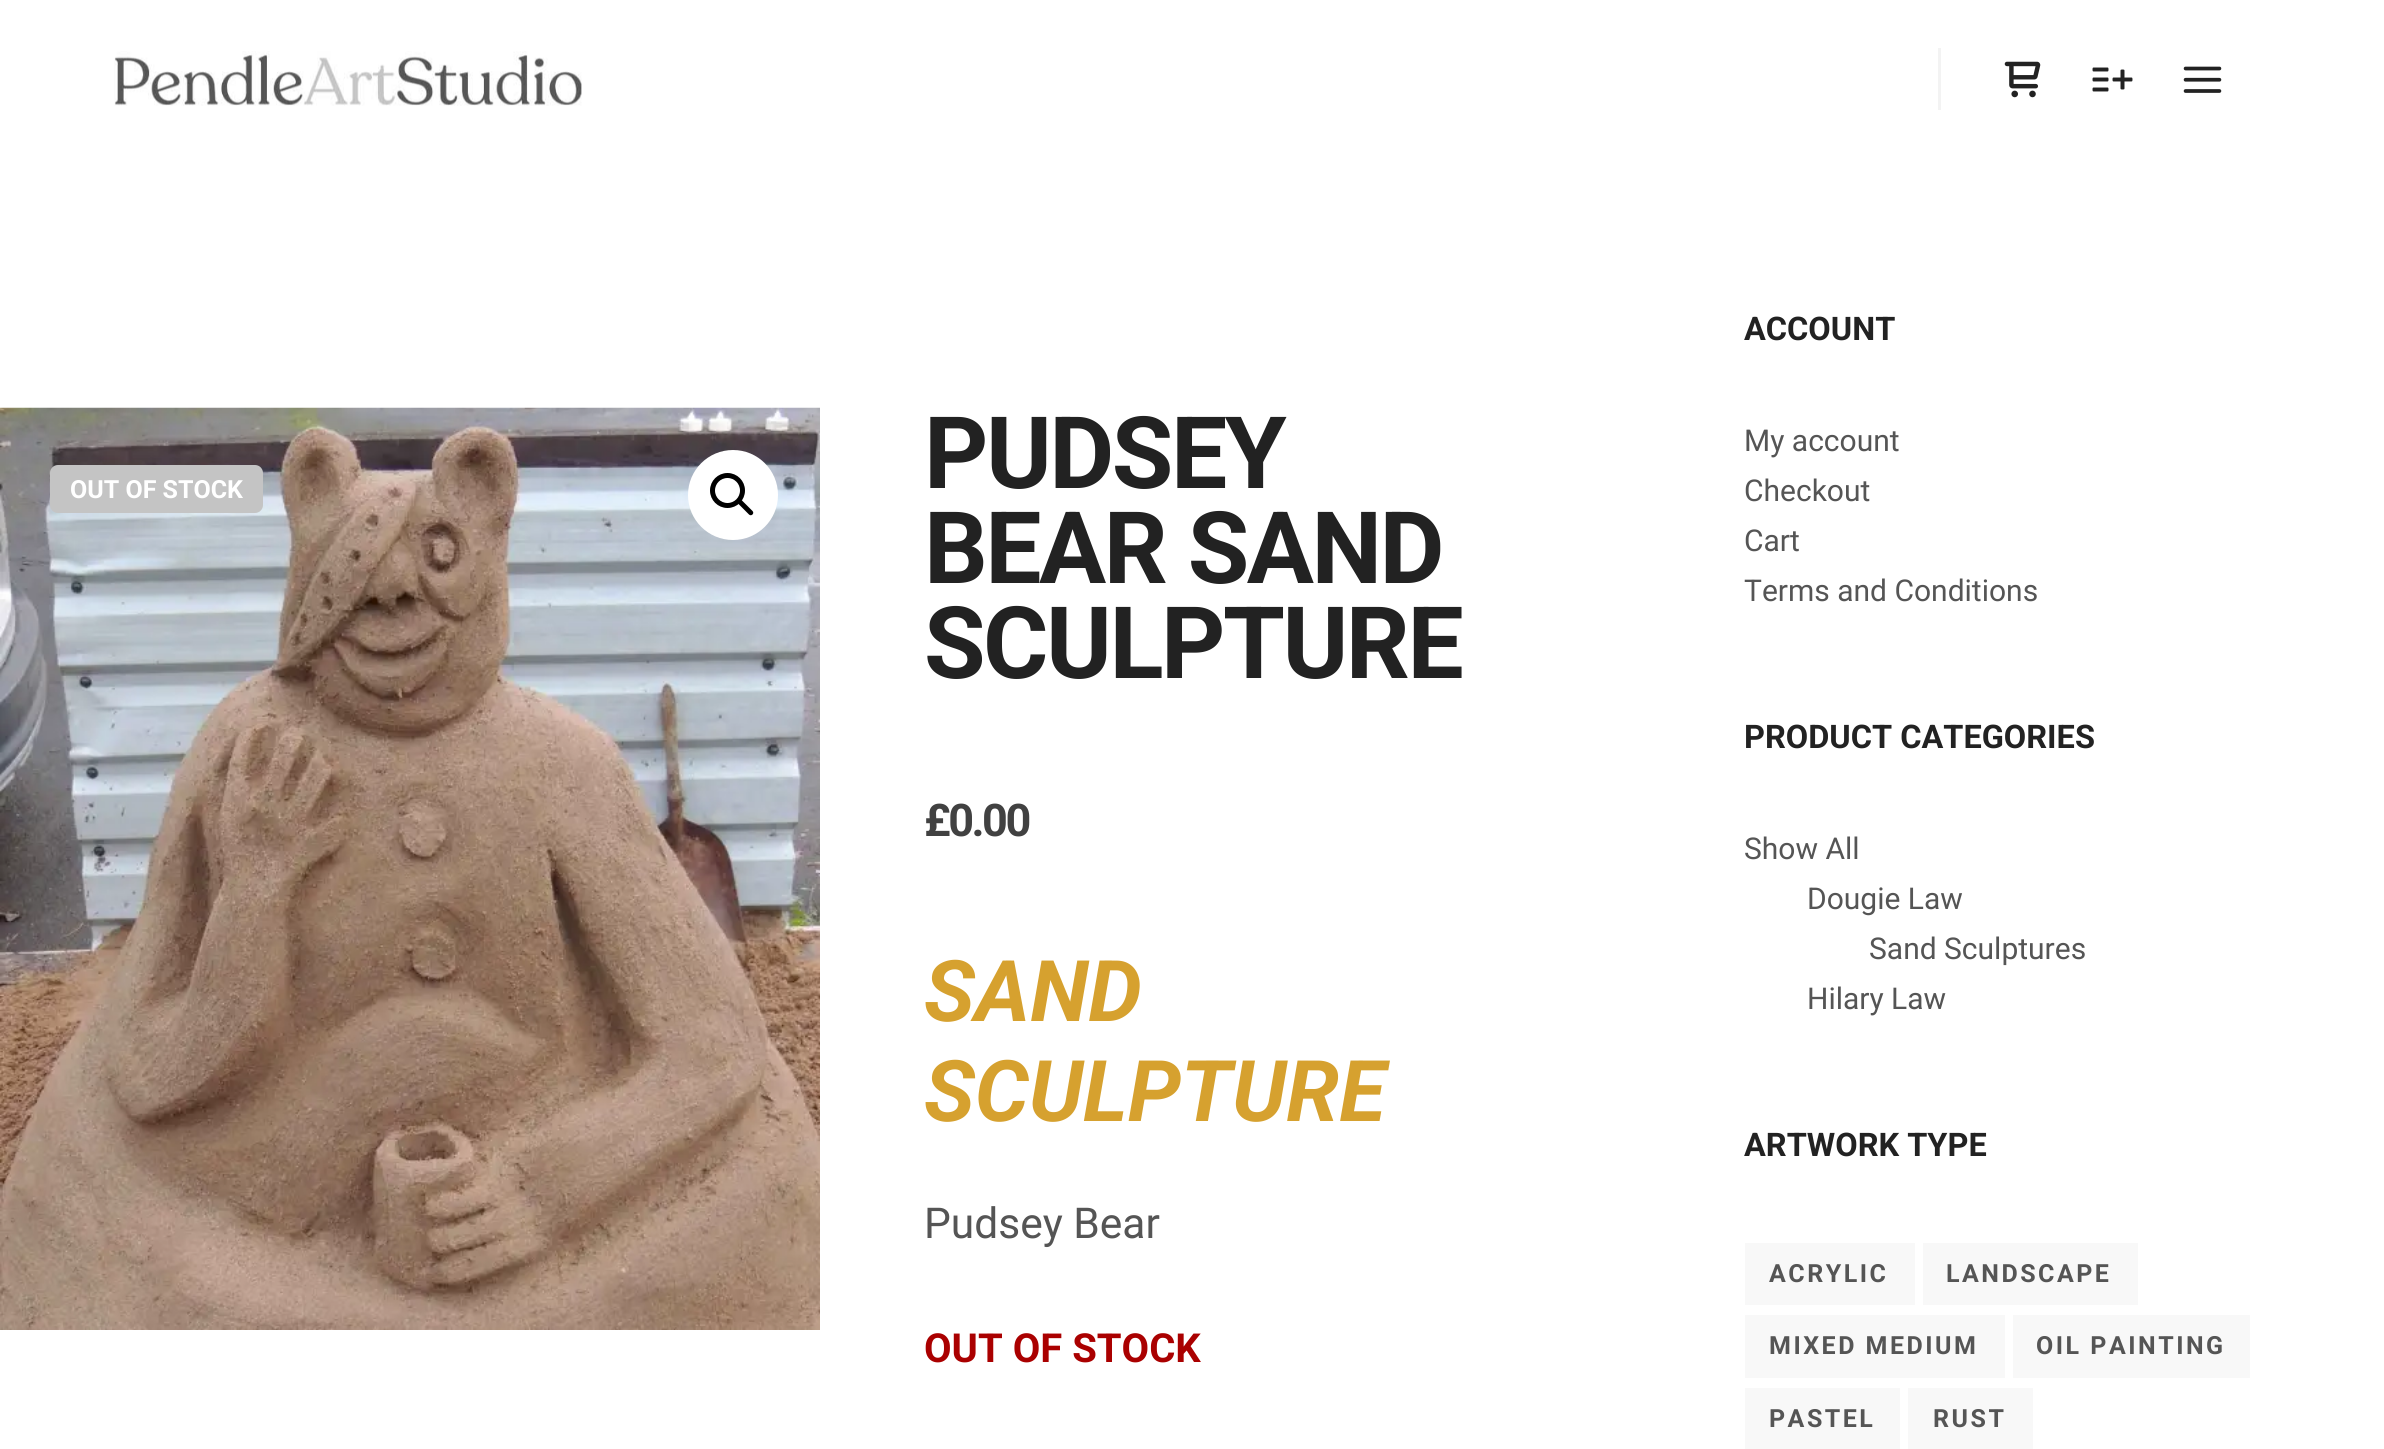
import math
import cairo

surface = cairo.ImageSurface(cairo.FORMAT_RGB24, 2384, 1449)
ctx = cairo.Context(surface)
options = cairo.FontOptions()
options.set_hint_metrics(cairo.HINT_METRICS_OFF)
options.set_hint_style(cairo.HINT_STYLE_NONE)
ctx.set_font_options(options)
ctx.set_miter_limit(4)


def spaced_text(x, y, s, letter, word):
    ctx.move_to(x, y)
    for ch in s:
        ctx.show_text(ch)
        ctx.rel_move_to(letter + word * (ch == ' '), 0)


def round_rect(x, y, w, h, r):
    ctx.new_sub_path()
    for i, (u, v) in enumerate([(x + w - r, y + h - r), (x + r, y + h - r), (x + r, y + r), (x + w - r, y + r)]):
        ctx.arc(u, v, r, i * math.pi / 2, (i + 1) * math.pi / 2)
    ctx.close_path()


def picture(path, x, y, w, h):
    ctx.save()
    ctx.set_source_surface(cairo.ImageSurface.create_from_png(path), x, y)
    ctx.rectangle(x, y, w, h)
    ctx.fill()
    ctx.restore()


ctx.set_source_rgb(1, 1, 1)
ctx.paint()
picture("img1.png", 114, 51, 468, 55)
ctx.set_source_rgb(0.953, 0.953, 0.953)
ctx.rectangle(1938, 48, 3, 62)
ctx.fill()
picture("img2.png", 2004, 61, 37, 37)
picture("img3.png", 2092, 67, 41, 25)
picture("img4.png", 2183, 66, 39, 27)
picture("img5.png", 0, 407, 820, 923)
ctx.set_source_rgb(0.769, 0.769, 0.769)
round_rect(50, 465, 213, 48, 8)
ctx.fill()
ctx.select_font_face("Roboto", cairo.FONT_SLANT_NORMAL, cairo.FONT_WEIGHT_BOLD)
ctx.set_font_size(25)
ctx.set_source_rgb(1, 1, 1)
ctx.move_to(70, 498)
ctx.show_text("OUT OF STOCK")
ctx.new_path()
ctx.arc(733, 495, 45, 0, 2 * math.pi)
ctx.fill()
ctx.arc(727.5, 490.5, 15, 0, 2 * math.pi)
ctx.set_source_rgb(0, 0, 0)
ctx.set_line_width(5)
ctx.stroke()
ctx.new_path()
ctx.move_to(738.5, 500.5)
ctx.curve_to(739.5, 499.5, 741, 499.5, 742, 500.5)
ctx.line_to(752.5, 511)
ctx.curve_to(753.5, 512, 753.5, 513.5, 752.5, 514.5)
ctx.curve_to(751.5, 515.5, 750, 515.5, 749, 514.5)
ctx.line_to(738.5, 504)
ctx.curve_to(737.5, 503, 737.5, 501.5, 738.5, 500.5)
ctx.close_path()
ctx.fill()
ctx.set_font_size(100)
ctx.set_source_rgb(0.133, 0.133, 0.133)
spaced_text(924, 488, "PUDSEY", -2.5, 0)
spaced_text(924, 583, "BEAR SAND", -2.5, 0)
spaced_text(924, 678, "SCULPTURE", -2.5, 0)
ctx.set_font_size(45)
ctx.set_source_rgb(0.255, 0.255, 0.255)
spaced_text(924, 836, "£0.00", -2.5, 0)
ctx.select_font_face("Roboto", cairo.FONT_SLANT_ITALIC, cairo.FONT_WEIGHT_BOLD)
ctx.set_font_size(85)
ctx.set_source_rgb(0.839, 0.631, 0.184)
ctx.move_to(924, 1021)
ctx.show_text("SAND")
ctx.move_to(924, 1121)
ctx.show_text("SCULPTURE")
ctx.select_font_face("Roboto")
ctx.set_font_size(42.5)
ctx.set_source_rgb(0.333, 0.333, 0.333)
ctx.move_to(924, 1238)
ctx.show_text("Pudsey Bear")
ctx.select_font_face("Roboto", cairo.FONT_SLANT_NORMAL, cairo.FONT_WEIGHT_BOLD)
ctx.set_font_size(40)
ctx.set_source_rgb(0.667, 0, 0)
ctx.move_to(924, 1362)
ctx.show_text("OUT OF STOCK")
ctx.set_font_size(32.5)
ctx.set_source_rgb(0.133, 0.133, 0.133)
ctx.move_to(1744, 340)
ctx.show_text("ACCOUNT")
ctx.select_font_face("Roboto")
ctx.set_font_size(30)
ctx.set_source_rgb(0.333, 0.333, 0.333)
ctx.move_to(1744, 451)
ctx.show_text("My account")
ctx.move_to(1744, 501)
ctx.show_text("Checkout")
ctx.move_to(1744, 551)
ctx.show_text("Cart")
ctx.move_to(1744, 601)
ctx.show_text("Terms and Conditions")
ctx.select_font_face("Roboto", cairo.FONT_SLANT_NORMAL, cairo.FONT_WEIGHT_BOLD)
ctx.set_font_size(32.5)
ctx.set_source_rgb(0.133, 0.133, 0.133)
ctx.move_to(1744, 748)
ctx.show_text("PRODUCT CATEGORIES")
ctx.select_font_face("Roboto")
ctx.set_font_size(30)
ctx.set_source_rgb(0.333, 0.333, 0.333)
ctx.move_to(1744, 859)
ctx.show_text("Show All")
ctx.move_to(1807, 909)
ctx.show_text("Dougie Law")
ctx.move_to(1869, 959)
ctx.show_text("Sand Sculptures")
ctx.move_to(1807, 1009)
ctx.show_text("Hilary Law")
ctx.select_font_face("Roboto", cairo.FONT_SLANT_NORMAL, cairo.FONT_WEIGHT_BOLD)
ctx.set_font_size(32.5)
ctx.set_source_rgb(0.133, 0.133, 0.133)
ctx.move_to(1744, 1156)
ctx.show_text("ARTWORK TYPE")
ctx.set_source_rgb(0.969, 0.969, 0.969)
ctx.rectangle(1745, 1243, 170, 62)
ctx.fill()
ctx.set_font_size(25)
ctx.set_source_rgb(0.333, 0.333, 0.333)
spaced_text(1769, 1282, "ACRYLIC", 2.5, 0)
ctx.set_source_rgb(0.969, 0.969, 0.969)
ctx.rectangle(1923, 1243, 215, 62)
ctx.fill()
ctx.set_source_rgb(0.333, 0.333, 0.333)
spaced_text(1946, 1282, "LANDSCAPE", 2.5, 0)
ctx.set_source_rgb(0.969, 0.969, 0.969)
ctx.rectangle(1745, 1315, 260, 63)
ctx.fill()
ctx.set_source_rgb(0.333, 0.333, 0.333)
spaced_text(1769, 1354, "MIXED MEDIUM", 2.5, 0)
ctx.set_source_rgb(0.969, 0.969, 0.969)
ctx.rectangle(2013, 1315, 237, 63)
ctx.fill()
ctx.set_source_rgb(0.333, 0.333, 0.333)
spaced_text(2036, 1354, "OIL PAINTING", 2.5, 0)
ctx.set_source_rgb(0.969, 0.969, 0.969)
ctx.rectangle(1745, 1388, 155, 61)
ctx.fill()
ctx.set_source_rgb(0.333, 0.333, 0.333)
spaced_text(1769, 1427, "PASTEL", 2.5, 0)
ctx.set_source_rgb(0.969, 0.969, 0.969)
ctx.rectangle(1908, 1388, 125, 61)
ctx.fill()
ctx.set_source_rgb(0.333, 0.333, 0.333)
spaced_text(1933, 1427, "RUST", 2.5, 0)
surface.write_to_png("page.png")
